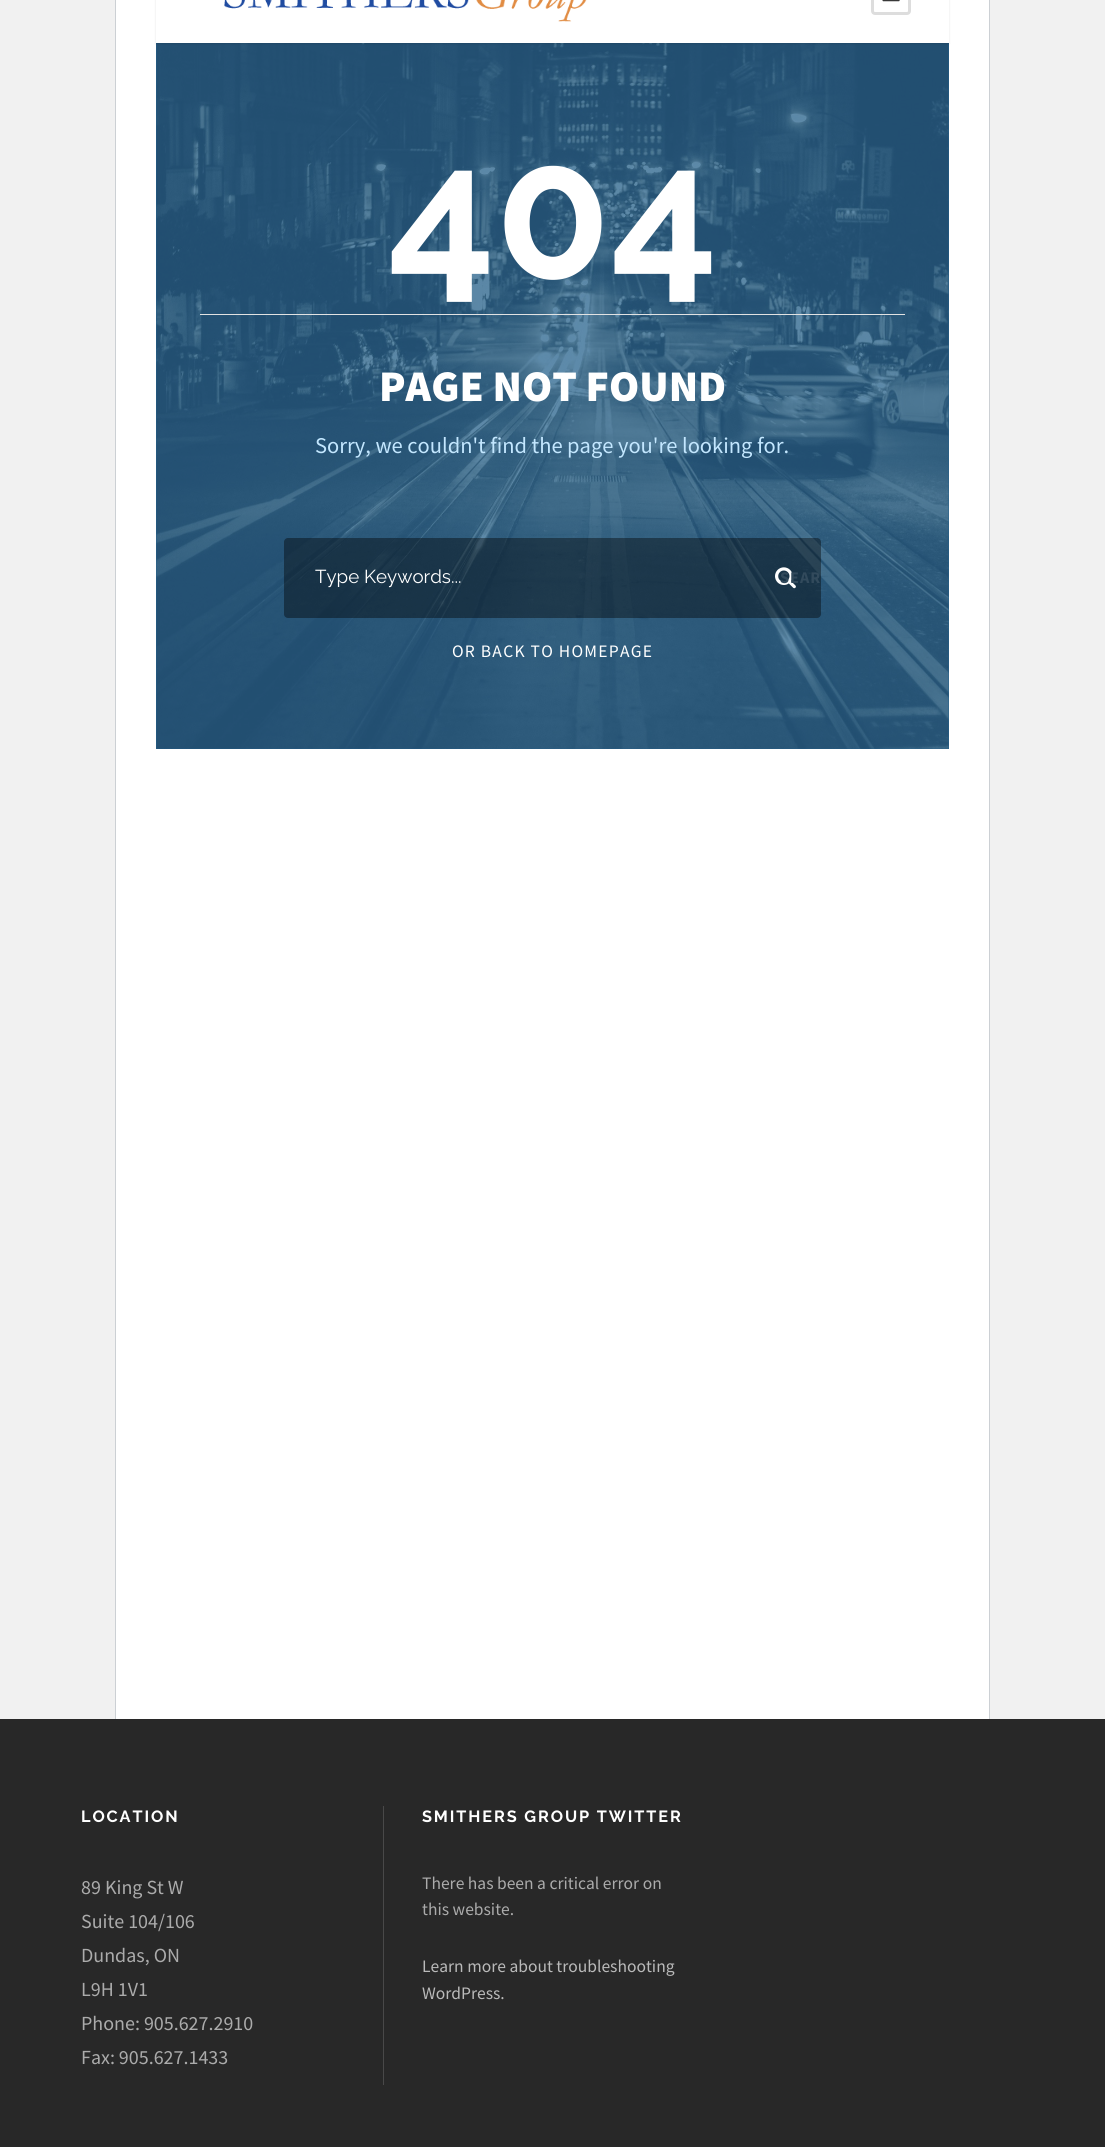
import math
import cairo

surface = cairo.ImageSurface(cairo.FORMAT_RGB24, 1105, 2147)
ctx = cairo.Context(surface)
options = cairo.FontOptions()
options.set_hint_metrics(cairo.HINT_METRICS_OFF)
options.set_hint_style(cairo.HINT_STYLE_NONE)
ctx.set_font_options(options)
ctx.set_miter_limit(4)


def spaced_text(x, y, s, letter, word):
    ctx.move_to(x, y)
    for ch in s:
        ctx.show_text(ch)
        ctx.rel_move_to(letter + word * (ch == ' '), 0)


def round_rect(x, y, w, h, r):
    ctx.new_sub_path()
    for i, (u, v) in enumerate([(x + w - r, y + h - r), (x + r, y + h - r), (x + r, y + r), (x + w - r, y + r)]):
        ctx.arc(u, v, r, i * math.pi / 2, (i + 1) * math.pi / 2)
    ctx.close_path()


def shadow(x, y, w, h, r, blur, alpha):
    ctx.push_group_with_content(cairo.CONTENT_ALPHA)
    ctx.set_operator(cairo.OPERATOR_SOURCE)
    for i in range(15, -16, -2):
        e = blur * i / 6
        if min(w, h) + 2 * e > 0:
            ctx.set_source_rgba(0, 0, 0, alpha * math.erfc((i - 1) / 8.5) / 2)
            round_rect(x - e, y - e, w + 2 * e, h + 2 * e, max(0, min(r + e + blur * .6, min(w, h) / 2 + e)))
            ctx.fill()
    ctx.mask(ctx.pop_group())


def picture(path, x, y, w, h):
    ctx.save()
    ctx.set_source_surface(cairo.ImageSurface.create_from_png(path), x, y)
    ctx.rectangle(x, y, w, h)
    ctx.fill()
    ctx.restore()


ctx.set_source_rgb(0.945, 0.945, 0.945)
ctx.paint()
ctx.set_source_rgb(1, 1, 1)
ctx.rectangle(116, 0, 873, 1719)
ctx.fill()
ctx.rectangle(115.5, -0.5, 874, 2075)
ctx.set_source_rgb(0.8, 0.816, 0.831)
ctx.set_line_width(1)
ctx.stroke()
ctx.set_source_rgb(0.137, 0.38, 0.557)
ctx.rectangle(156, 43, 793, 706)
ctx.fill()
picture("img3.png", 156, 43, 793, 706)
ctx.set_source_rgb(0, 0, 0)
shadow(156, -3, 793, 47, 0, 1, 0.1)
ctx.set_source_rgb(1, 1, 1)
ctx.rectangle(156, 0, 793, 43)
ctx.fill()
picture("img1.png", 224, 0, 363, 22)
round_rect(872.5, -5.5, 37, 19, 2.5)
ctx.set_source_rgb(0.867, 0.867, 0.867)
ctx.set_line_width(3)
ctx.stroke()
picture("img2.png", 882, 0, 18, 2)
ctx.set_source_rgb(0.886, 0.886, 0.886)
ctx.rectangle(200, 314, 705, 1)
ctx.fill()
ctx.select_font_face("Raleway", cairo.FONT_SLANT_NORMAL, cairo.FONT_WEIGHT_BOLD)
ctx.set_font_size(188)
ctx.set_source_rgb(1, 1, 1)
ctx.move_to(388, 278)
ctx.show_text("404")
ctx.select_font_face("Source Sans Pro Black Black")
ctx.set_font_size(43.75)
ctx.move_to(379, 401)
ctx.show_text("PAGE NOT FOUND")
ctx.select_font_face("Source Sans Pro")
ctx.set_font_size(22.5)
ctx.set_source_rgb(0.765, 0.906, 1)
ctx.move_to(315, 453)
ctx.show_text("Sorry, we couldn't find the page you're looking for.")
ctx.set_source_rgba(0, 0, 0, 0.4)
round_rect(284, 538, 537, 80, 4)
ctx.fill()
ctx.select_font_face("Raleway")
ctx.set_font_size(18.75)
ctx.set_source_rgb(1, 1, 1)
ctx.move_to(315, 583)
ctx.show_text("Type Keywords...")
picture("img4.png", 775, 567, 21, 22)
ctx.select_font_face("Source Sans Pro", cairo.FONT_SLANT_NORMAL, cairo.FONT_WEIGHT_BOLD)
ctx.set_font_size(16.25)
ctx.set_source_rgb(0.196, 0.29, 0.361)
spaced_text(780, 583, "SEAR", 1, 0)
ctx.select_font_face("Source Sans Pro")
ctx.set_font_size(17.5)
ctx.set_source_rgb(1, 1, 1)
spaced_text(452, 657, "OR BACK TO HOMEPAGE", 1.25, 0)
ctx.set_source_rgb(0.157, 0.157, 0.157)
ctx.rectangle(0, 1719, 1105, 428)
ctx.fill()
ctx.select_font_face("Raleway", cairo.FONT_SLANT_NORMAL, cairo.FONT_WEIGHT_BOLD)
ctx.set_font_size(16.25)
ctx.set_source_rgb(1, 1, 1)
spaced_text(81, 1822, "LOCATION", 1.9, 0)
ctx.select_font_face("Source Sans Pro")
ctx.set_font_size(20)
ctx.set_source_rgb(0.671, 0.671, 0.671)
ctx.move_to(81, 1894)
ctx.show_text("89 King St W")
ctx.move_to(81, 1928)
ctx.show_text("Suite 104/106")
ctx.move_to(81, 1962)
ctx.show_text("Dundas, ON")
ctx.move_to(81, 1996)
ctx.show_text("L9H 1V1")
ctx.move_to(81, 2030)
ctx.show_text("Phone: 905.627.2910")
ctx.move_to(81, 2064)
ctx.show_text("Fax: 905.627.1433")
ctx.set_source_rgb(0.286, 0.286, 0.286)
ctx.rectangle(383, 1806, 1, 279)
ctx.fill()
ctx.select_font_face("Raleway", cairo.FONT_SLANT_NORMAL, cairo.FONT_WEIGHT_BOLD)
ctx.set_font_size(16.25)
ctx.set_source_rgb(1, 1, 1)
spaced_text(422, 1822, "SMITHERS GROUP TWITTER", 1.9, 0)
ctx.select_font_face("Source Sans Pro")
ctx.set_font_size(17.5)
ctx.set_source_rgb(0.671, 0.671, 0.671)
ctx.move_to(422, 1889)
ctx.show_text("There has been a critical error on")
ctx.move_to(422, 1915)
ctx.show_text("this website.")
ctx.set_source_rgb(0.729, 0.729, 0.729)
ctx.move_to(422, 1972)
ctx.show_text("Learn more about troubleshooting")
ctx.move_to(422, 1999)
ctx.show_text("WordPress.")
surface.write_to_png("page.png")
